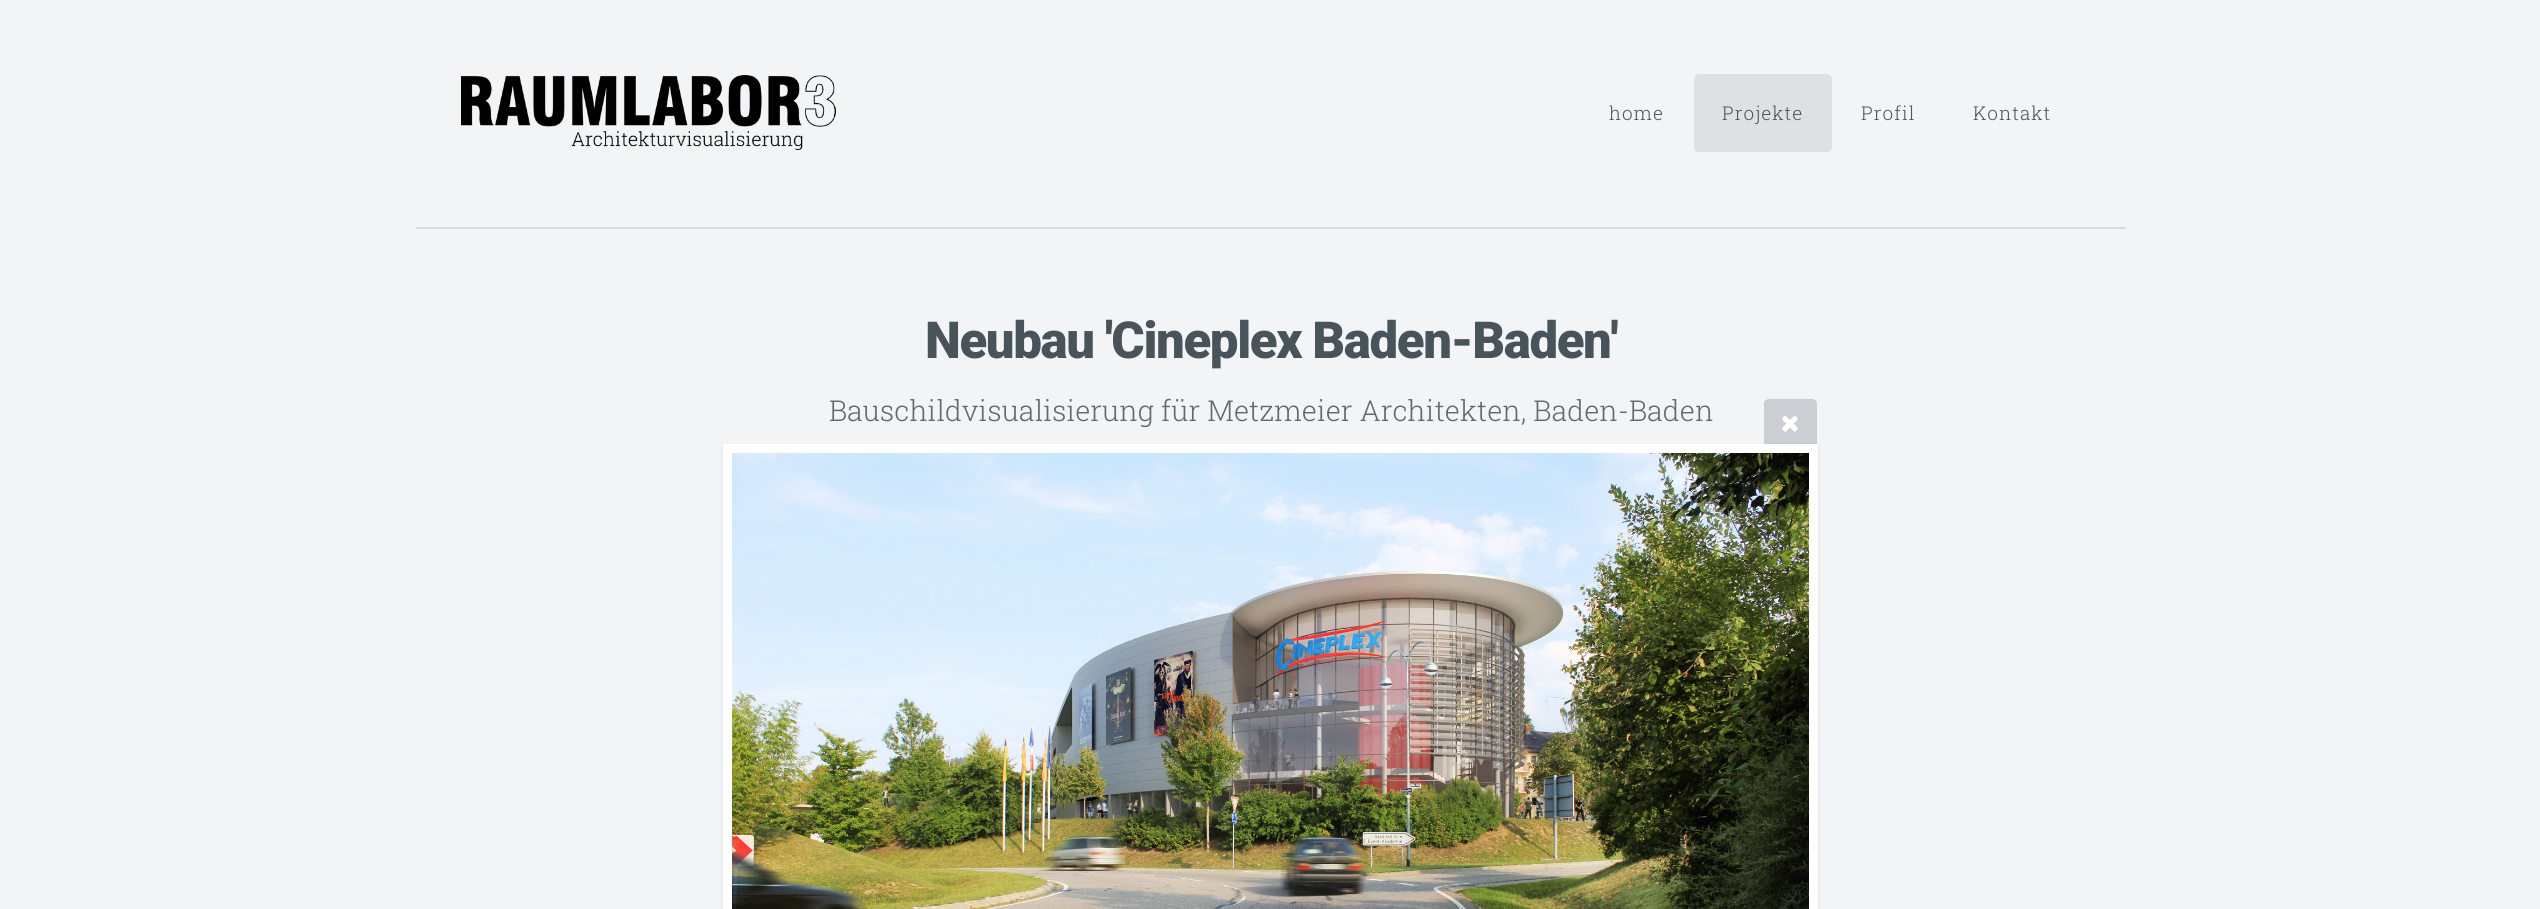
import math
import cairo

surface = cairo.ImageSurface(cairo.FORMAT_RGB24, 2540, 909)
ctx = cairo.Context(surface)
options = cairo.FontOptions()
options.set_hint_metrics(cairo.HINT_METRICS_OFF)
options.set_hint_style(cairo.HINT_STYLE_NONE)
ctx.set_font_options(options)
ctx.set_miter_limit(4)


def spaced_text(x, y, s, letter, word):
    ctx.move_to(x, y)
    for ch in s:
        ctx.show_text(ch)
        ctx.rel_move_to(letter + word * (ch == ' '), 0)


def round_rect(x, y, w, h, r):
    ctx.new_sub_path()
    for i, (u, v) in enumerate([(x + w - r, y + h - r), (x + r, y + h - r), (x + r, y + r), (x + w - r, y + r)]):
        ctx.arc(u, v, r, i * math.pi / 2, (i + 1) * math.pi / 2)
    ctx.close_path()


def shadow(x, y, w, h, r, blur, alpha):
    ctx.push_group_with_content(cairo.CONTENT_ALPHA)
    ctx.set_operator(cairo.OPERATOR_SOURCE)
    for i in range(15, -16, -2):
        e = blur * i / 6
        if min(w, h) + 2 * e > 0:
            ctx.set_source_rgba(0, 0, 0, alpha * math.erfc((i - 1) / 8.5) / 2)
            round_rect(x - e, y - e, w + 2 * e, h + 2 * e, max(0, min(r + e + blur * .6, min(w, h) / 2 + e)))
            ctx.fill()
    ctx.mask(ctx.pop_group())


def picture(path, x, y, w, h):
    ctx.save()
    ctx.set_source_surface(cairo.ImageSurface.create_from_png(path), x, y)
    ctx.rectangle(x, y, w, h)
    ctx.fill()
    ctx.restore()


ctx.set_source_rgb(0.953, 0.957, 0.961)
ctx.paint()
ctx.set_source_rgb(0.847, 0.863, 0.875)
ctx.rectangle(416, 227, 1710, 2)
ctx.fill()
picture("img1.png", 461, 75, 375, 75)
ctx.select_font_face("Roboto Slab Light")
ctx.set_font_size(19)
ctx.set_source_rgb(0.282, 0.329, 0.353)
spaced_text(1609, 120, "home", 1, 0)
ctx.set_source_rgb(0.871, 0.882, 0.894)
round_rect(1694, 74, 138, 78, 5)
ctx.fill()
ctx.set_source_rgb(0.282, 0.329, 0.353)
spaced_text(1722, 120, "Projekte", 1, 0)
spaced_text(1861, 120, "Profil", 1, 0)
spaced_text(1973, 120, "Kontakt", 1, 0)
ctx.select_font_face("Roboto Black")
ctx.set_font_size(51)
spaced_text(925, 358, "Neubau 'Cineplex Baden-Baden'", -1.4, 0)
ctx.select_font_face("Roboto Slab Light")
ctx.set_font_size(28.8)
ctx.set_source_rgb(0.357, 0.412, 0.443)
ctx.move_to(829, 421)
ctx.show_text("Bauschildvisualisierung für Metzmeier Architekten, Baden-Baden")
ctx.set_source_rgb(0.796, 0.812, 0.831)
ctx.new_path()
ctx.move_to(1769, 399)
ctx.line_to(1812, 399)
ctx.curve_to(1815, 399, 1817, 401, 1817, 404)
ctx.line_to(1817, 446)
ctx.line_to(1764, 446)
ctx.line_to(1764, 404)
ctx.curve_to(1764, 401, 1766, 399, 1769, 399)
ctx.close_path()
ctx.fill()
picture("img2.png", 1782, 415, 16, 17)
ctx.set_source_rgb(0, 0, 0)
shadow(723, 446, 1095, 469, 0, 2, 0.1)
ctx.set_source_rgb(1, 1, 1)
ctx.rectangle(723, 444, 1095, 465)
ctx.fill()
picture("img3.png", 732, 453, 1077, 456)
surface.write_to_png("page.png")
